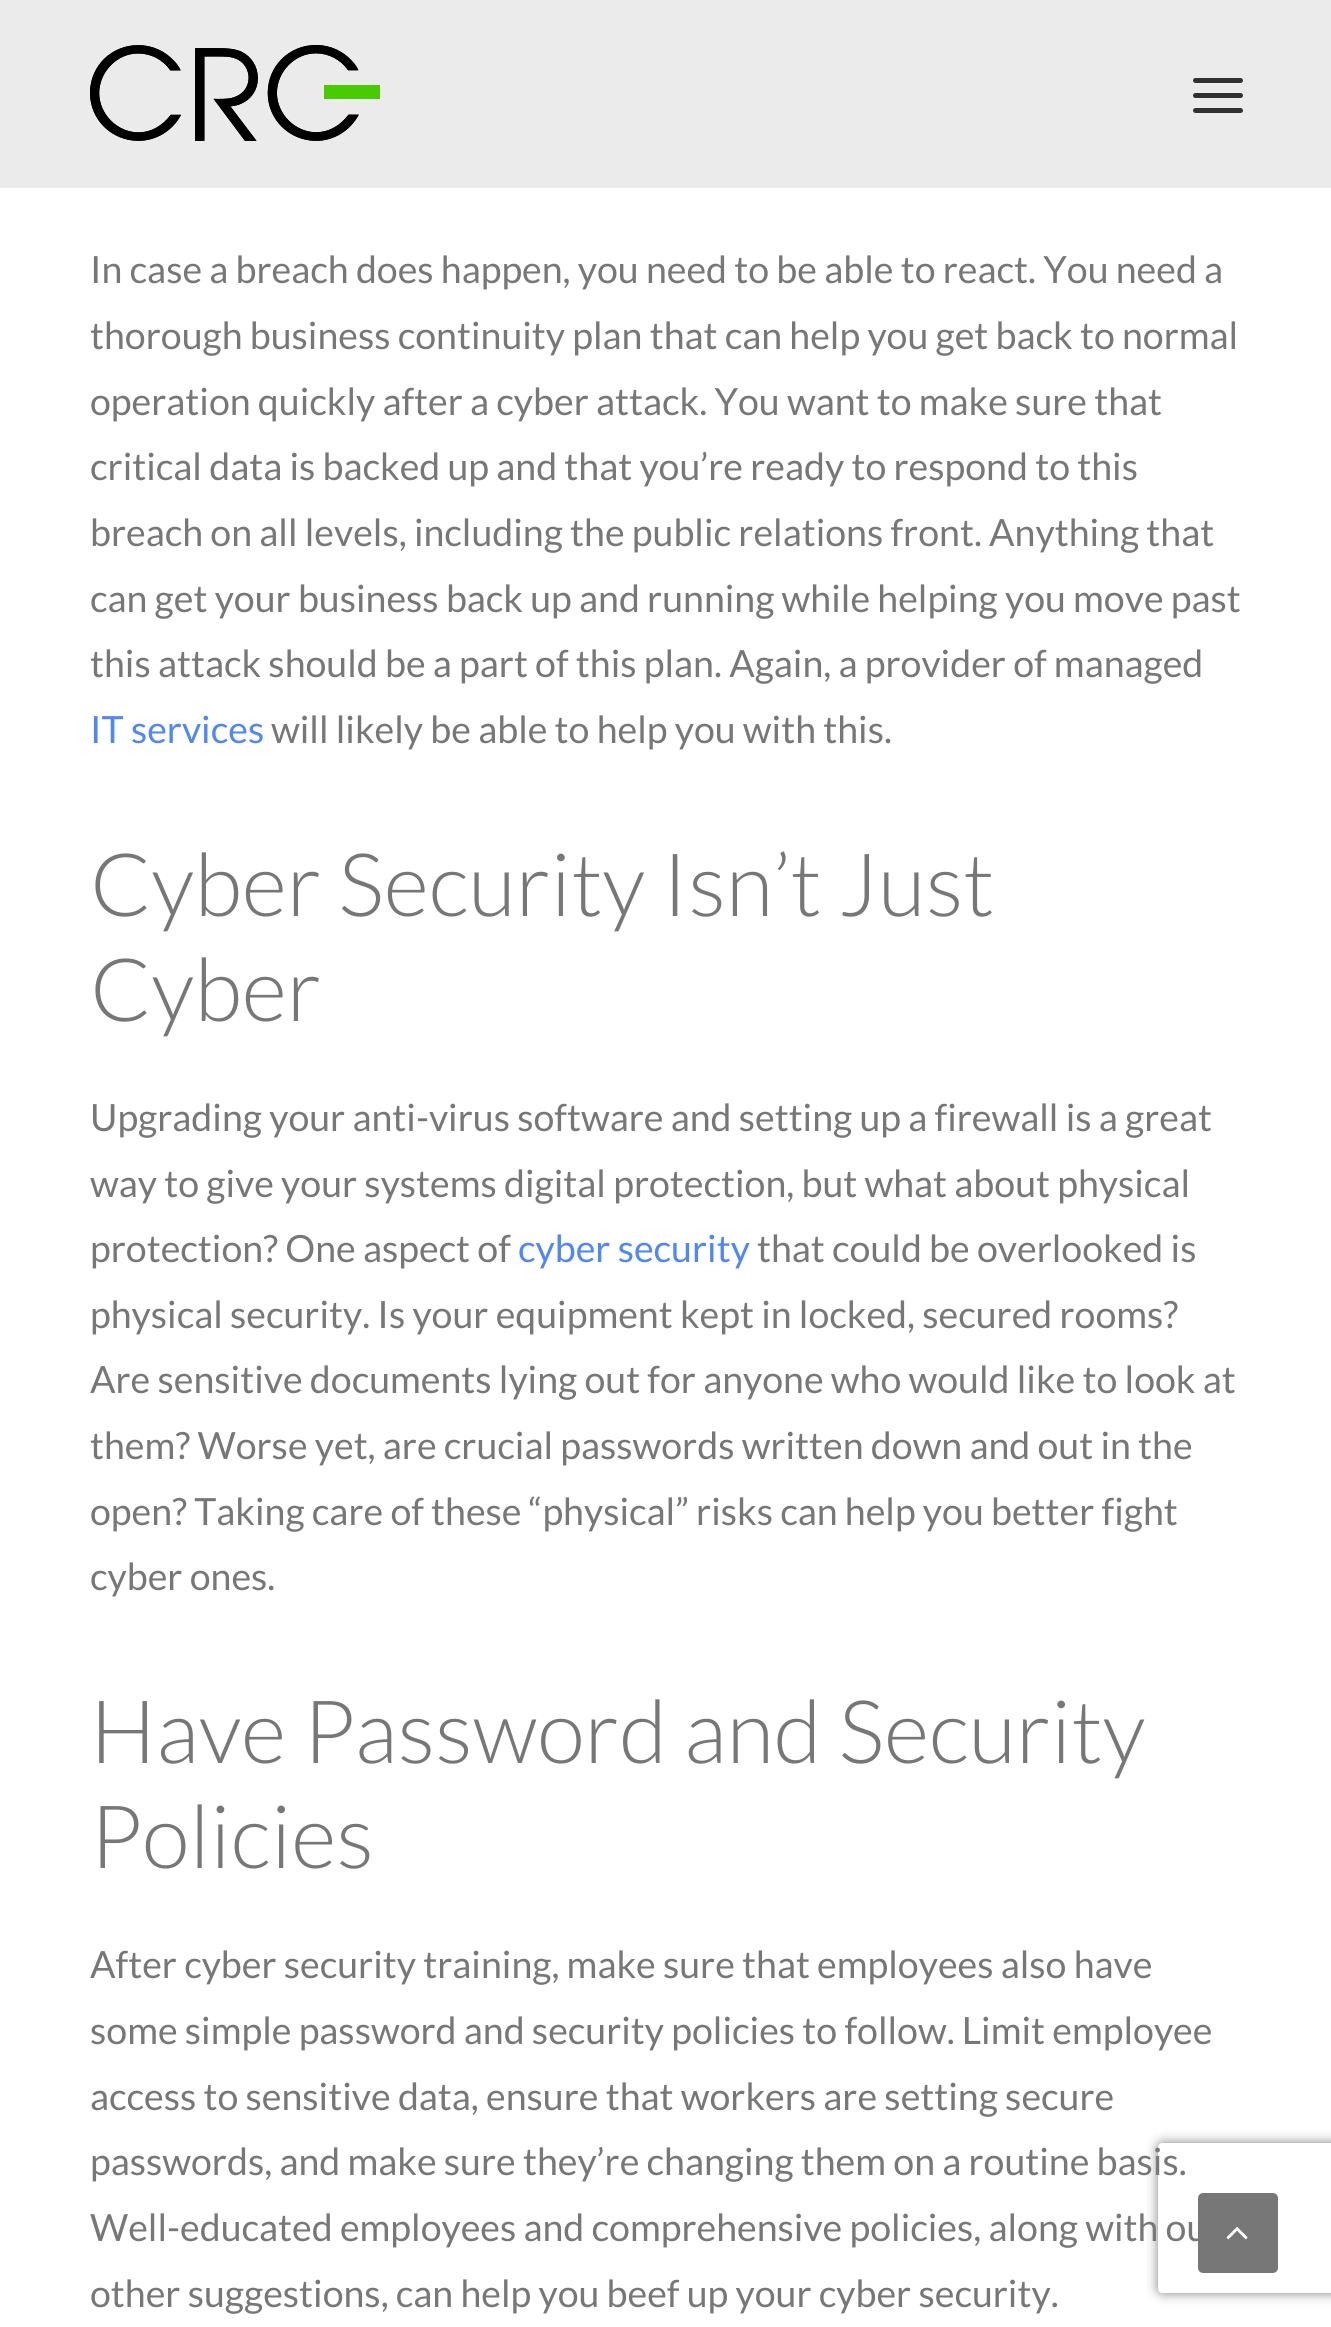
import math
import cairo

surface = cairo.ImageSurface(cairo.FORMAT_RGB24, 1331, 2327)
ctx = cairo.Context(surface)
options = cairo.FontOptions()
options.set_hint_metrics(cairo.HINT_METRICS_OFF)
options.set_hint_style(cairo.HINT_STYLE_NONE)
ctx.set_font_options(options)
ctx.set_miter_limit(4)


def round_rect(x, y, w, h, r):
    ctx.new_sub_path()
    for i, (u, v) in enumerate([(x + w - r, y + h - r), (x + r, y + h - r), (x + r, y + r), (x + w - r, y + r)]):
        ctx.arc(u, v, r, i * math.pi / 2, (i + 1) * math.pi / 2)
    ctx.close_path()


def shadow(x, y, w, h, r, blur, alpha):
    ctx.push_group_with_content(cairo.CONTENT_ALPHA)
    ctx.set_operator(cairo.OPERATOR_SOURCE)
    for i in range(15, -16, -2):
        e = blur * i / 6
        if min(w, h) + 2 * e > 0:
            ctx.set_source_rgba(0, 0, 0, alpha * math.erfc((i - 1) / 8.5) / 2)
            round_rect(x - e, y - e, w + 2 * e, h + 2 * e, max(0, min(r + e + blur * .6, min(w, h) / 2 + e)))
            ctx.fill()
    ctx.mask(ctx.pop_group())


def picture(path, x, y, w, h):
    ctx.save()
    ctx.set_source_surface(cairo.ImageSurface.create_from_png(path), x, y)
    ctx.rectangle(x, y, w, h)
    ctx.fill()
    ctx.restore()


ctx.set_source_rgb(1, 1, 1)
ctx.paint()
ctx.set_source_rgb(0.918, 0.918, 0.918)
ctx.rectangle(0, 0, 1331, 188)
ctx.fill()
picture("img1.png", 90, 45, 290, 96)
ctx.set_source_rgb(0.188, 0.192, 0.2)
round_rect(1193, 93, 50, 5, 2.5)
ctx.fill()
round_rect(1193, 78, 50, 5, 2.5)
ctx.fill()
round_rect(1193, 108, 50, 5, 2.5)
ctx.fill()
ctx.select_font_face("Lato")
ctx.set_font_size(37.5)
ctx.set_source_rgb(0.467, 0.467, 0.467)
ctx.move_to(90, 283)
ctx.show_text("In case a breach does happen, you need to be able to react. You need a")
ctx.move_to(90, 349)
ctx.show_text("thorough business continuity plan that can help you get back to normal")
ctx.move_to(90, 415)
ctx.show_text("operation quickly after a cyber attack. You want to make sure that")
ctx.move_to(90, 480)
ctx.show_text("critical data is backed up and that you’re ready to respond to this")
ctx.move_to(90, 546)
ctx.show_text("breach on all levels, including the public relations front. Anything that")
ctx.move_to(90, 612)
ctx.show_text("can get your business back up and running while helping you move past")
ctx.move_to(90, 677)
ctx.show_text("this attack should be a part of this plan. Again, a provider of managed")
ctx.set_source_rgb(0.31, 0.529, 0.965)
ctx.move_to(90, 743)
ctx.show_text("IT services")
ctx.set_source_rgb(0.467, 0.467, 0.467)
ctx.move_to(271, 743)
ctx.show_text("will likely be able to help you with this.")
ctx.select_font_face("Lato Light")
ctx.set_font_size(87.5)
ctx.move_to(90, 916)
ctx.show_text("Cyber Security Isn’t Just")
ctx.move_to(90, 1021)
ctx.show_text("Cyber")
ctx.select_font_face("Lato")
ctx.set_font_size(37.5)
ctx.move_to(90, 1131)
ctx.show_text("Upgrading your anti-virus software and setting up a firewall is a great")
ctx.move_to(90, 1197)
ctx.show_text("way to give your systems digital protection, but what about physical")
ctx.move_to(90, 1262)
ctx.show_text("protection? One aspect of")
ctx.set_source_rgb(0.31, 0.529, 0.965)
ctx.move_to(518, 1262)
ctx.show_text("cyber security")
ctx.set_source_rgb(0.467, 0.467, 0.467)
ctx.move_to(757, 1262)
ctx.show_text("that could be overlooked is")
ctx.move_to(90, 1328)
ctx.show_text("physical security. Is your equipment kept in locked, secured rooms?")
ctx.move_to(90, 1393)
ctx.show_text("Are sensitive documents lying out for anyone who would like to look at")
ctx.move_to(90, 1459)
ctx.show_text("them? Worse yet, are crucial passwords written down and out in the")
ctx.move_to(90, 1525)
ctx.show_text("open? Taking care of these “physical” risks can help you better fight")
ctx.move_to(90, 1590)
ctx.show_text("cyber ones.")
ctx.select_font_face("Lato Light")
ctx.set_font_size(87.5)
ctx.move_to(90, 1763)
ctx.show_text("Have Password and Security")
ctx.move_to(90, 1868)
ctx.show_text("Policies")
ctx.select_font_face("Lato")
ctx.set_font_size(37.5)
ctx.move_to(90, 1978)
ctx.show_text("After cyber security training, make sure that employees also have")
ctx.move_to(90, 2044)
ctx.show_text("some simple password and security policies to follow. Limit employee")
ctx.move_to(90, 2110)
ctx.show_text("access to sensitive data, ensure that workers are setting secure")
ctx.move_to(90, 2175)
ctx.show_text("passwords, and make sure they’re changing them on a routine basis.")
ctx.move_to(90, 2241)
ctx.show_text("Well-educated employees and comprehensive policies, along with ou")
ctx.move_to(90, 2307)
ctx.show_text("other suggestions, can help you beef up your cyber security.")
ctx.save()
ctx.set_fill_rule(cairo.FILL_RULE_EVEN_ODD)
ctx.new_path()
ctx.move_to(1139, 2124)
ctx.line_to(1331, 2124)
ctx.line_to(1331, 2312)
ctx.line_to(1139, 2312)
ctx.close_path()
ctx.move_to(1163, 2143)
ctx.line_to(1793, 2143)
ctx.curve_to(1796, 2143, 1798, 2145, 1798, 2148)
ctx.line_to(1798, 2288)
ctx.curve_to(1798, 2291, 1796, 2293, 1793, 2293)
ctx.line_to(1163, 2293)
ctx.curve_to(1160, 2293, 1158, 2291, 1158, 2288)
ctx.line_to(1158, 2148)
ctx.curve_to(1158, 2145, 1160, 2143, 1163, 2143)
ctx.close_path()
ctx.clip()
ctx.set_source_rgb(0.502, 0.502, 0.502)
shadow(1158, 2143, 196, 150, 5, 6, 1)
ctx.restore()
round_rect(1199.5, 2194.5, 77, 77, 3.5)
ctx.fill_preserve()
ctx.set_line_width(3)
ctx.stroke()
picture("img2.png", 1226, 2227, 22, 13)
surface.write_to_png("page.png")
